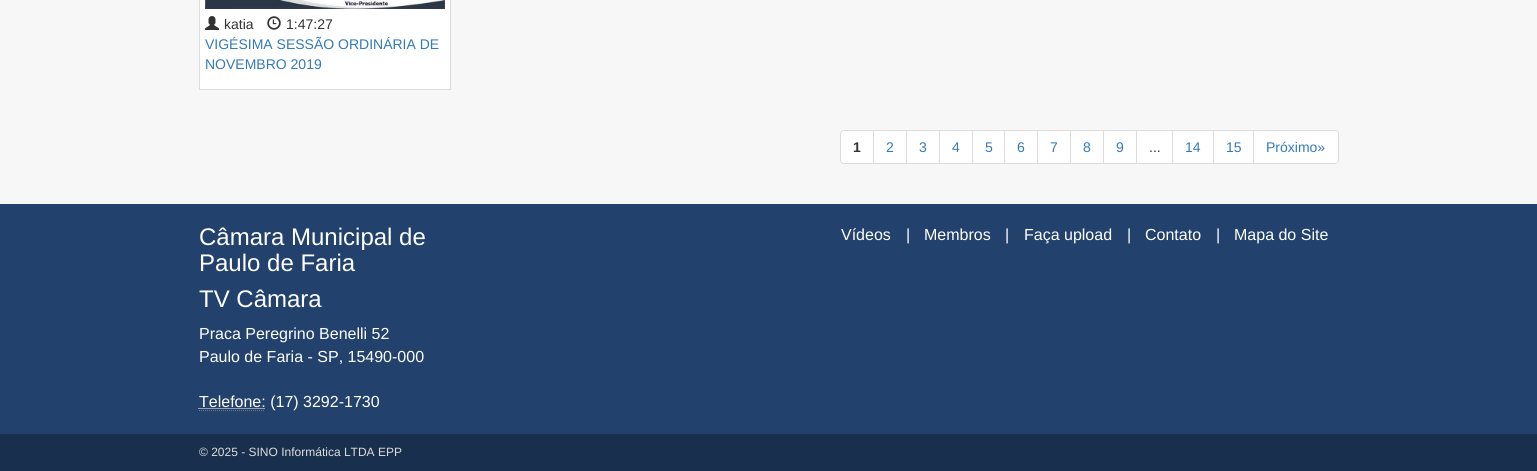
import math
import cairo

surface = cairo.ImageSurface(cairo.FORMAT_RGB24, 1537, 471)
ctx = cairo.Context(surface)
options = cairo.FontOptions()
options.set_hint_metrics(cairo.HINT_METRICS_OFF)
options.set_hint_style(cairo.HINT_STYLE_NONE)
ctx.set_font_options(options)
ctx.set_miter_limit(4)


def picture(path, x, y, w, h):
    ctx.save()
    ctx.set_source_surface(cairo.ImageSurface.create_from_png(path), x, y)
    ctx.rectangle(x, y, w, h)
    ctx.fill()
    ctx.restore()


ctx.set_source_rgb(0.965, 0.965, 0.965)
ctx.paint()
ctx.set_source_rgb(1, 1, 1)
ctx.rectangle(199.5, -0.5, 251, 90)
ctx.fill_preserve()
ctx.set_source_rgb(0.867, 0.867, 0.867)
ctx.set_line_width(1)
ctx.stroke()
picture("img1.png", 205, 0, 240, 9)
picture("img2.png", 205, 16, 14, 14)
ctx.select_font_face("Liberation Sans")
ctx.set_font_size(14)
ctx.set_source_rgb(0.2, 0.2, 0.2)
ctx.move_to(224, 29)
ctx.show_text("katia")
picture("img3.png", 267, 16, 14, 14)
ctx.move_to(286, 29)
ctx.show_text("1:47:27")
ctx.set_source_rgb(0.2, 0.478, 0.718)
ctx.move_to(205, 49)
ctx.show_text("VIGÉSIMA SESSÃO ORDINÁRIA DE")
ctx.move_to(205, 69)
ctx.show_text("NOVEMBRO 2019")
ctx.set_source_rgb(1, 1, 1)
ctx.new_path()
ctx.move_to(844, 130.5)
ctx.line_to(873.5, 130.5)
ctx.line_to(873.5, 163.5)
ctx.line_to(844, 163.5)
ctx.curve_to(842, 163.5, 840.5, 162, 840.5, 160)
ctx.line_to(840.5, 134)
ctx.curve_to(840.5, 132, 842, 130.5, 844, 130.5)
ctx.close_path()
ctx.fill_preserve()
ctx.set_source_rgb(0.867, 0.867, 0.867)
ctx.stroke()
ctx.select_font_face("Liberation Sans", cairo.FONT_SLANT_NORMAL, cairo.FONT_WEIGHT_BOLD)
ctx.set_source_rgb(0.2, 0.2, 0.2)
ctx.move_to(853, 152)
ctx.show_text("1")
ctx.set_source_rgb(1, 1, 1)
ctx.rectangle(874, 131, 32, 32)
ctx.fill()
ctx.set_source_rgb(0.867, 0.867, 0.867)
ctx.rectangle(874, 130, 380, 1)
ctx.fill()
ctx.rectangle(906, 130, 1, 34)
ctx.fill()
ctx.rectangle(874, 163, 33, 1)
ctx.fill()
ctx.select_font_face("Liberation Sans")
ctx.set_source_rgb(0.2, 0.478, 0.718)
ctx.move_to(886, 152)
ctx.show_text("2")
ctx.set_source_rgb(1, 1, 1)
ctx.rectangle(907, 131, 32, 32)
ctx.fill()
ctx.set_source_rgb(0.867, 0.867, 0.867)
ctx.rectangle(939, 130, 1, 34)
ctx.fill()
ctx.rectangle(907, 163, 33, 1)
ctx.fill()
ctx.set_source_rgb(0.2, 0.478, 0.718)
ctx.move_to(919, 152)
ctx.show_text("3")
ctx.set_source_rgb(1, 1, 1)
ctx.rectangle(940, 131, 32, 32)
ctx.fill()
ctx.set_source_rgb(0.867, 0.867, 0.867)
ctx.rectangle(972, 130, 1, 34)
ctx.fill()
ctx.rectangle(940, 163, 33, 1)
ctx.fill()
ctx.set_source_rgb(0.2, 0.478, 0.718)
ctx.move_to(952, 152)
ctx.show_text("4")
ctx.set_source_rgb(1, 1, 1)
ctx.rectangle(973, 131, 31, 32)
ctx.fill()
ctx.set_source_rgb(0.867, 0.867, 0.867)
ctx.rectangle(1004, 130, 1, 34)
ctx.fill()
ctx.rectangle(973, 163, 32, 1)
ctx.fill()
ctx.set_source_rgb(0.2, 0.478, 0.718)
ctx.move_to(985, 152)
ctx.show_text("5")
ctx.set_source_rgb(1, 1, 1)
ctx.rectangle(1005, 131, 32, 32)
ctx.fill()
ctx.set_source_rgb(0.867, 0.867, 0.867)
ctx.rectangle(1037, 130, 1, 34)
ctx.fill()
ctx.rectangle(1005, 163, 33, 1)
ctx.fill()
ctx.set_source_rgb(0.2, 0.478, 0.718)
ctx.move_to(1017, 152)
ctx.show_text("6")
ctx.set_source_rgb(1, 1, 1)
ctx.rectangle(1038, 131, 32, 32)
ctx.fill()
ctx.set_source_rgb(0.867, 0.867, 0.867)
ctx.rectangle(1070, 130, 1, 34)
ctx.fill()
ctx.rectangle(1038, 163, 33, 1)
ctx.fill()
ctx.set_source_rgb(0.2, 0.478, 0.718)
ctx.move_to(1050, 152)
ctx.show_text("7")
ctx.set_source_rgb(1, 1, 1)
ctx.rectangle(1071, 131, 32, 32)
ctx.fill()
ctx.set_source_rgb(0.867, 0.867, 0.867)
ctx.rectangle(1103, 130, 1, 34)
ctx.fill()
ctx.rectangle(1071, 163, 33, 1)
ctx.fill()
ctx.set_source_rgb(0.2, 0.478, 0.718)
ctx.move_to(1083, 152)
ctx.show_text("8")
ctx.set_source_rgb(1, 1, 1)
ctx.rectangle(1104, 131, 32, 32)
ctx.fill()
ctx.set_source_rgb(0.867, 0.867, 0.867)
ctx.rectangle(1136, 130, 1, 34)
ctx.fill()
ctx.rectangle(1104, 163, 33, 1)
ctx.fill()
ctx.set_source_rgb(0.2, 0.478, 0.718)
ctx.move_to(1116, 152)
ctx.show_text("9")
ctx.set_source_rgb(1, 1, 1)
ctx.rectangle(1137, 131, 35, 32)
ctx.fill()
ctx.set_source_rgb(0.867, 0.867, 0.867)
ctx.rectangle(1172, 130, 1, 34)
ctx.fill()
ctx.rectangle(1137, 163, 36, 1)
ctx.fill()
ctx.set_source_rgb(0.2, 0.2, 0.2)
ctx.move_to(1149, 152)
ctx.show_text("...")
ctx.set_source_rgb(1, 1, 1)
ctx.rectangle(1173, 131, 40, 32)
ctx.fill()
ctx.set_source_rgb(0.867, 0.867, 0.867)
ctx.rectangle(1213, 130, 1, 34)
ctx.fill()
ctx.rectangle(1173, 163, 41, 1)
ctx.fill()
ctx.set_source_rgb(0.2, 0.478, 0.718)
ctx.move_to(1185, 152)
ctx.show_text("14")
ctx.set_source_rgb(1, 1, 1)
ctx.rectangle(1214, 131, 39, 32)
ctx.fill()
ctx.set_source_rgb(0.867, 0.867, 0.867)
ctx.rectangle(1253, 130, 1, 34)
ctx.fill()
ctx.rectangle(1214, 163, 40, 1)
ctx.fill()
ctx.set_source_rgb(0.2, 0.478, 0.718)
ctx.move_to(1226, 152)
ctx.show_text("15")
ctx.set_source_rgb(1, 1, 1)
ctx.new_path()
ctx.move_to(1254, 130)
ctx.line_to(1335, 130)
ctx.curve_to(1337, 130, 1339, 132, 1339, 134)
ctx.line_to(1339, 160)
ctx.curve_to(1339, 162, 1337, 164, 1335, 164)
ctx.line_to(1254, 164)
ctx.close_path()
ctx.fill()
ctx.set_source_rgb(0.867, 0.867, 0.867)
ctx.set_fill_rule(cairo.FILL_RULE_EVEN_ODD)
ctx.new_path()
ctx.move_to(1254, 130)
ctx.line_to(1335, 130)
ctx.curve_to(1337, 130, 1339, 132, 1339, 134)
ctx.line_to(1339, 160)
ctx.curve_to(1339, 162, 1337, 164, 1335, 164)
ctx.line_to(1254, 164)
ctx.close_path()
ctx.move_to(1254, 131)
ctx.line_to(1335, 131)
ctx.curve_to(1337, 131, 1338, 132, 1338, 134)
ctx.line_to(1338, 160)
ctx.curve_to(1338, 162, 1337, 163, 1335, 163)
ctx.line_to(1254, 163)
ctx.close_path()
ctx.fill()
ctx.set_source_rgb(0.2, 0.478, 0.718)
ctx.move_to(1266, 152)
ctx.show_text("Próximo»")
ctx.set_source_rgb(0.133, 0.259, 0.427)
ctx.rectangle(0, 204, 1537, 230)
ctx.fill()
ctx.set_font_size(24)
ctx.set_source_rgb(1, 1, 1)
ctx.move_to(199, 245)
ctx.show_text("Câmara Municipal de")
ctx.move_to(199, 271)
ctx.show_text("Paulo de Faria")
ctx.move_to(199, 307)
ctx.show_text("TV Câmara")
ctx.set_font_size(16)
ctx.move_to(199, 339)
ctx.show_text("Praca Peregrino Benelli 52")
ctx.move_to(199, 362)
ctx.show_text("Paulo de Faria - SP, 15490-000")
ctx.new_path()
ctx.move_to(199, 410.5)
ctx.line_to(265, 410.5)
ctx.set_source_rgb(0.467, 0.467, 0.467)
ctx.set_dash([1, 1])
ctx.stroke()
ctx.new_path()
ctx.move_to(198.5, 408.5)
ctx.line_to(265, 408.5)
ctx.set_source_rgb(1, 1, 1)
ctx.stroke()
ctx.move_to(199, 407)
ctx.show_text("Telefone: (17) 3292-1730")
ctx.move_to(841, 240)
ctx.show_text("Vídeos")
ctx.move_to(906, 240)
ctx.show_text("|")
ctx.move_to(924, 240)
ctx.show_text("Membros")
ctx.move_to(1005, 240)
ctx.show_text("|")
ctx.move_to(1024, 240)
ctx.show_text("Faça upload")
ctx.move_to(1127, 240)
ctx.show_text("|")
ctx.move_to(1145, 240)
ctx.show_text("Contato")
ctx.move_to(1216, 240)
ctx.show_text("|")
ctx.move_to(1234, 240)
ctx.show_text("Mapa do Site")
ctx.set_source_rgb(0.098, 0.184, 0.306)
ctx.rectangle(0, 434, 1537, 37)
ctx.fill()
ctx.set_font_size(12)
ctx.set_source_rgb(0.867, 0.867, 0.867)
ctx.move_to(199, 456)
ctx.show_text("© 2025 - SINO Informática LTDA EPP")
surface.write_to_png("page.png")
